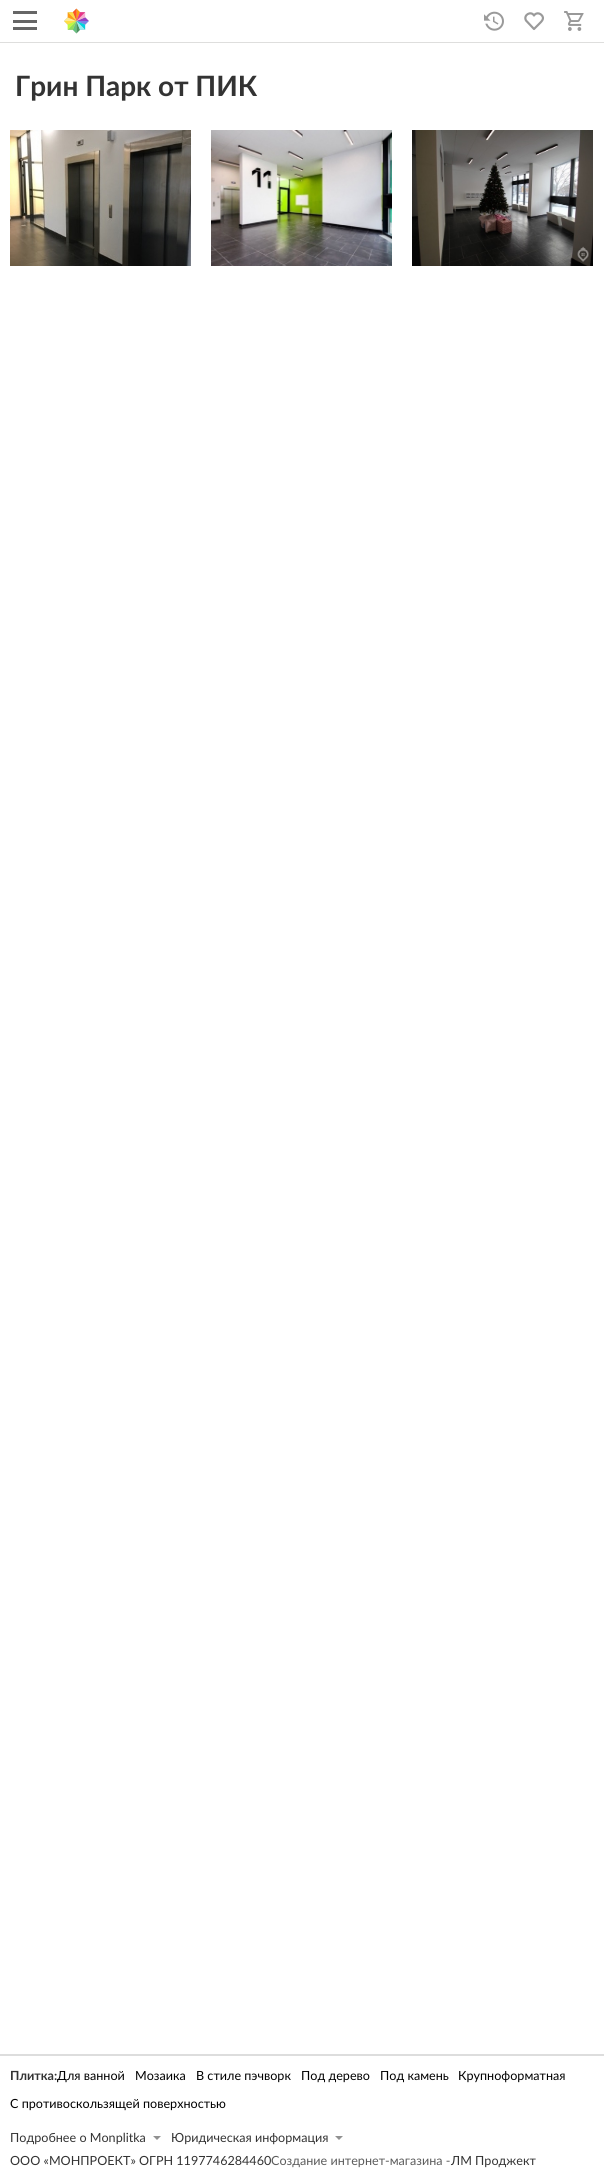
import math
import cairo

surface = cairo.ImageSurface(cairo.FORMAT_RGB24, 604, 2176)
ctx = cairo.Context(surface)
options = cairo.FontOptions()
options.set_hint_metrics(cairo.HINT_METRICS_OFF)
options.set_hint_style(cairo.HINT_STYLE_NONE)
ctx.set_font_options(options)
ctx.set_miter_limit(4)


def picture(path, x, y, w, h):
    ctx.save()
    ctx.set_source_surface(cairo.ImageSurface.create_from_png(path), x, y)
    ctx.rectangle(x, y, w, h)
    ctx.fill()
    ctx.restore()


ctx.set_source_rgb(1, 1, 1)
ctx.paint()
ctx.set_source_rgb(0.871, 0.871, 0.867)
ctx.rectangle(0, 42, 604, 1)
ctx.fill()
ctx.set_source_rgb(0.4, 0.4, 0.4)
ctx.rectangle(13, 11, 24, 3)
ctx.fill()
ctx.rectangle(13, 20, 24, 3)
ctx.fill()
ctx.rectangle(13, 27, 24, 3)
ctx.fill()
picture("img1.png", 64, 8, 25, 26)
picture("img2.png", 484, 11, 20, 20)
ctx.new_path()
ctx.move_to(541.5, 15)
ctx.curve_to(545, 18.5, 541.5, 21.5, 539, 24)
ctx.line_to(534, 29)
ctx.line_to(526, 20.5)
ctx.curve_to(523, 15, 531, 10.5, 534, 15.5)
ctx.curve_to(535.5, 13, 539, 12.5, 541.5, 15)
ctx.close_path()
ctx.set_source_rgb(0.604, 0.604, 0.604)
ctx.set_line_width(2.2)
ctx.set_line_cap(cairo.LINE_CAP_ROUND)
ctx.set_line_join(cairo.LINE_JOIN_ROUND)
ctx.stroke()
picture("img3.png", 564, 11, 20, 20)
ctx.select_font_face("Lato", cairo.FONT_SLANT_NORMAL, cairo.FONT_WEIGHT_BOLD)
ctx.set_font_size(28)
ctx.set_source_rgb(0.2, 0.2, 0.2)
ctx.move_to(15, 96)
ctx.show_text("Грин Парк от ПИК")
picture("img4.png", 10, 130, 181, 136)
picture("img5.png", 211, 130, 181, 136)
picture("img6.png", 412, 130, 181, 136)
ctx.set_source_rgb(0.867, 0.867, 0.867)
ctx.rectangle(0, 2054, 604, 2)
ctx.fill()
ctx.set_font_size(12.6)
ctx.set_source_rgb(0.2, 0.2, 0.2)
ctx.move_to(10, 2080)
ctx.show_text("Плитка:")
ctx.select_font_face("Lato")
ctx.set_source_rgb(0, 0, 0)
ctx.move_to(57, 2080)
ctx.show_text("Для ванной")
ctx.move_to(135, 2080)
ctx.show_text("Мозаика")
ctx.move_to(196, 2080)
ctx.show_text("В стиле пэчворк")
ctx.move_to(301, 2080)
ctx.show_text("Под дерево")
ctx.move_to(380, 2080)
ctx.show_text("Под камень")
ctx.move_to(458, 2080)
ctx.show_text("Крупноформатная")
ctx.move_to(10, 2108)
ctx.show_text("С противоскользящей поверхностью")
ctx.set_source_rgb(0.569, 0.569, 0.569)
ctx.new_path()
ctx.move_to(153, 2136)
ctx.line_to(157, 2140)
ctx.line_to(161, 2136)
ctx.close_path()
ctx.fill()
ctx.set_source_rgb(0.2, 0.2, 0.2)
ctx.move_to(10, 2142)
ctx.show_text("Подробнее о Monplitka")
ctx.set_source_rgb(0.569, 0.569, 0.569)
ctx.new_path()
ctx.move_to(335, 2136)
ctx.line_to(339, 2140)
ctx.line_to(343, 2136)
ctx.close_path()
ctx.fill()
ctx.set_source_rgb(0.2, 0.2, 0.2)
ctx.move_to(171, 2142)
ctx.show_text("Юридическая информация")
ctx.move_to(10, 2165)
ctx.show_text("ООО «МОНПРОЕКТ» ОГРН 1197746284460")
ctx.set_source_rgb(0.361, 0.361, 0.361)
ctx.move_to(271, 2165)
ctx.show_text("Создание интернет-магазина -")
ctx.set_source_rgb(0.2, 0.2, 0.2)
ctx.move_to(451, 2165)
ctx.show_text("ЛМ Проджект")
surface.write_to_png("page.png")
